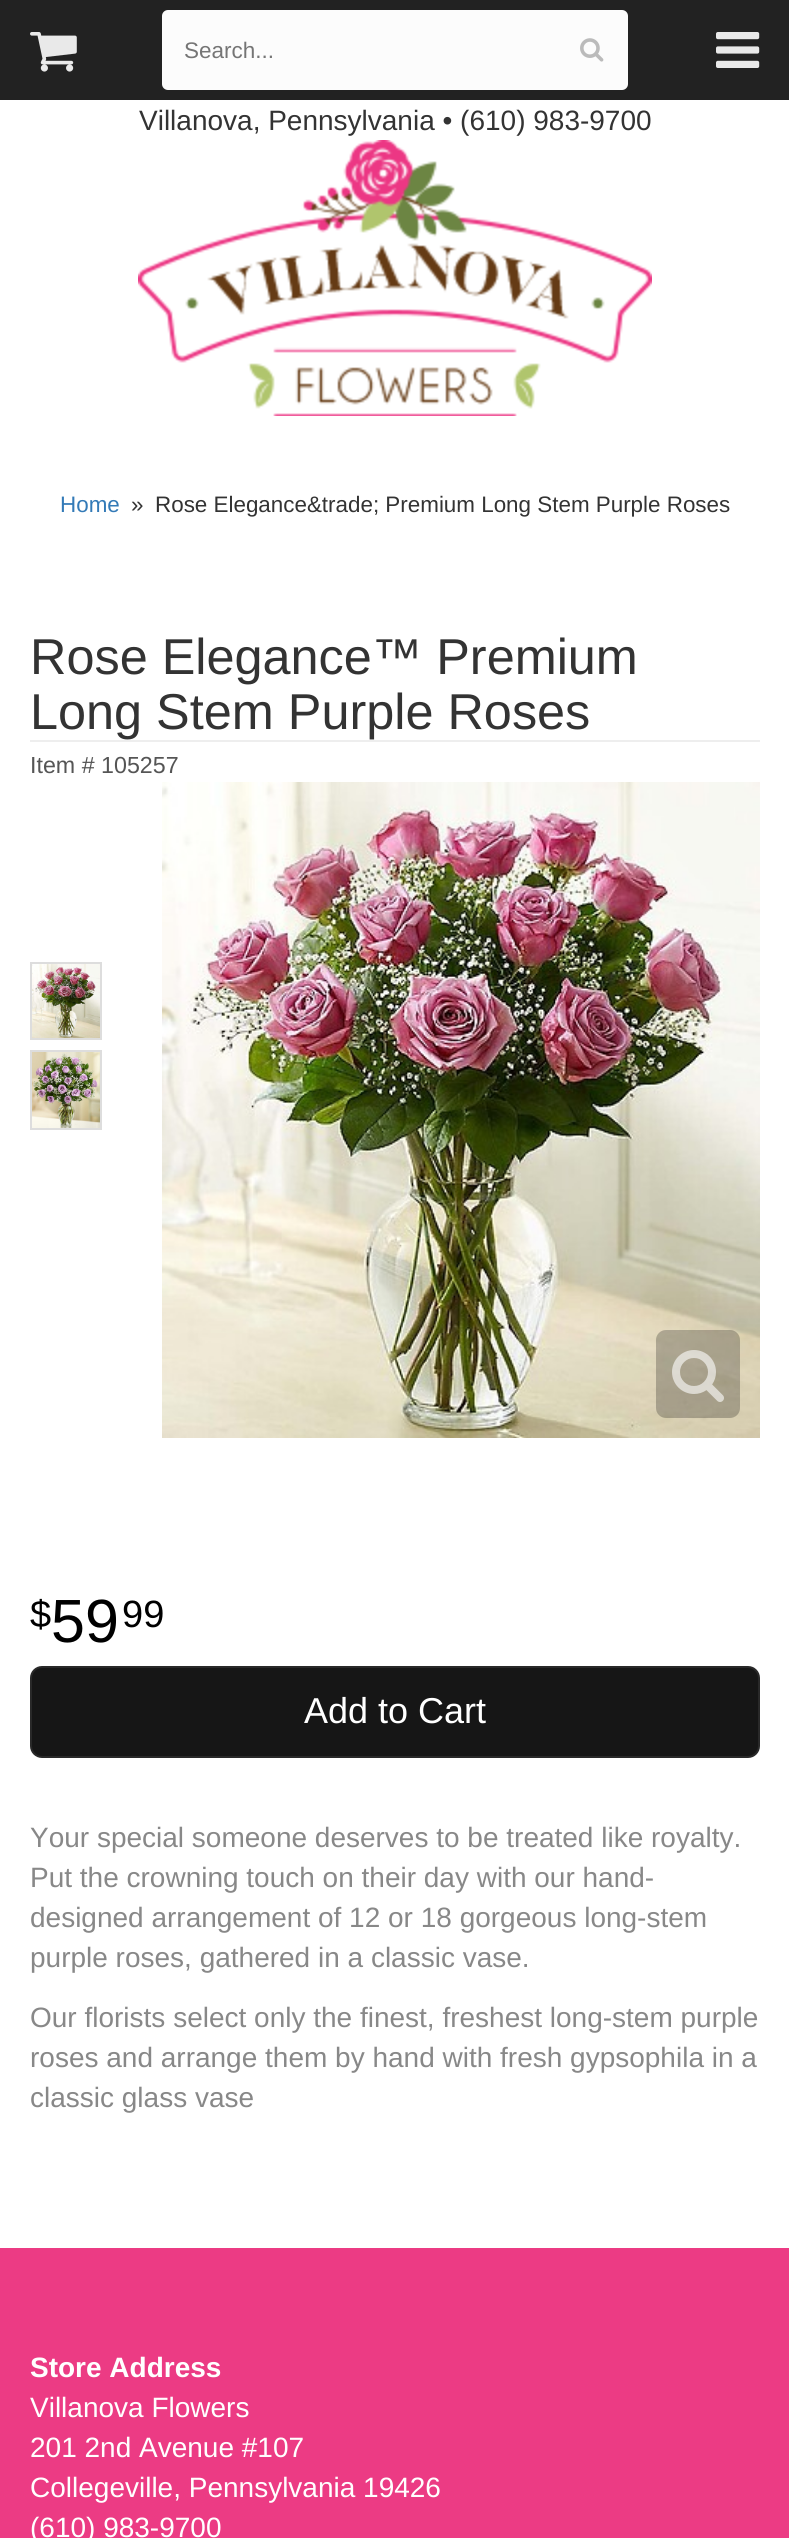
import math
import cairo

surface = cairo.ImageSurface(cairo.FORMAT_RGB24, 789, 2538)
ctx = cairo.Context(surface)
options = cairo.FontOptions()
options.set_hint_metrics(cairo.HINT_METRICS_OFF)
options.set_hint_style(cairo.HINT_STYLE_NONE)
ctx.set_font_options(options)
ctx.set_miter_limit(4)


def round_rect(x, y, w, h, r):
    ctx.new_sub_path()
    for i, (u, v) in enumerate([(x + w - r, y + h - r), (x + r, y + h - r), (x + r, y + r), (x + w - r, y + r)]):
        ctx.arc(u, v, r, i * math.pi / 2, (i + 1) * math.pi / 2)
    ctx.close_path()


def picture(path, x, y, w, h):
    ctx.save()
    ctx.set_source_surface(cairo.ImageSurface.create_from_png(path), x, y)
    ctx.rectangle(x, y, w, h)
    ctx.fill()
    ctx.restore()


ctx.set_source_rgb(1, 1, 1)
ctx.paint()
ctx.set_source_rgb(0.133, 0.133, 0.133)
ctx.rectangle(0, 0, 789, 100)
ctx.fill()
picture("img1.png", 30, 32, 47, 40)
ctx.set_source_rgb(0.988, 0.988, 0.988)
round_rect(162, 10, 466, 80, 6)
ctx.fill()
ctx.select_font_face("Liberation Sans")
ctx.set_font_size(22.5)
ctx.set_source_rgb(0.459, 0.459, 0.459)
ctx.move_to(184, 58)
ctx.show_text("Search...")
picture("img2.png", 580, 38, 24, 24)
picture("img3.png", 716, 32, 44, 36)
picture("img4.png", 138, 140, 514, 276)
ctx.set_font_size(28)
ctx.set_source_rgb(0.2, 0.2, 0.2)
ctx.move_to(139, 130)
ctx.show_text("Villanova, Pennsylvania • (610) 983-9700")
ctx.set_font_size(22.4)
ctx.set_source_rgb(0.2, 0.478, 0.718)
ctx.move_to(60, 512)
ctx.show_text("Home")
ctx.set_source_rgb(0.2, 0.2, 0.2)
ctx.move_to(131, 512)
ctx.show_text("»")
ctx.move_to(155, 512)
ctx.show_text("Rose Elegance&trade; Premium Long Stem Purple Roses")
ctx.set_source_rgb(0.933, 0.933, 0.933)
ctx.rectangle(30, 740, 730, 2)
ctx.fill()
ctx.set_font_size(50.4)
ctx.set_source_rgb(0.2, 0.2, 0.2)
ctx.move_to(30, 674)
ctx.show_text("Rose Elegance™ Premium")
ctx.move_to(30, 729)
ctx.show_text("Long Stem Purple Roses")
ctx.set_font_size(23.25)
ctx.set_source_rgb(0.333, 0.333, 0.333)
ctx.move_to(30, 773)
ctx.show_text("Item # 105257")
ctx.rectangle(31, 963, 70, 76)
ctx.set_source_rgb(0.867, 0.867, 0.867)
ctx.stroke()
picture("img5.png", 32, 964, 68, 74)
ctx.rectangle(31, 1051, 70, 78)
ctx.stroke()
picture("img6.png", 32, 1052, 68, 76)
picture("img7.png", 162, 782, 598, 656)
ctx.set_source_rgba(0, 0, 0, 0.24)
round_rect(656, 1330, 84, 88, 10)
ctx.fill()
picture("img8.png", 672, 1350, 52, 52)
ctx.set_font_size(38)
ctx.set_source_rgb(0, 0, 0)
ctx.move_to(30, 1627)
ctx.show_text("$")
ctx.set_font_size(61)
ctx.move_to(51, 1642)
ctx.show_text("59")
ctx.set_font_size(38)
ctx.move_to(122, 1627)
ctx.show_text("99")
ctx.set_source_rgb(0.086, 0.086, 0.086)
round_rect(31, 1667, 728, 90, 11)
ctx.fill_preserve()
ctx.set_source_rgb(0.161, 0.161, 0.161)
ctx.stroke()
ctx.set_font_size(36)
ctx.set_source_rgb(1, 1, 1)
ctx.move_to(304, 1723)
ctx.show_text("Add to Cart")
ctx.set_font_size(28)
ctx.set_source_rgb(0.533, 0.533, 0.533)
ctx.move_to(30, 1847)
ctx.show_text("Your special someone deserves to be treated like royalty.")
ctx.move_to(30, 1887)
ctx.show_text("Put the crowning touch on their day with our hand-")
ctx.move_to(30, 1927)
ctx.show_text("designed arrangement of 12 or 18 gorgeous long-stem")
ctx.move_to(30, 1967)
ctx.show_text("purple roses, gathered in a classic vase.")
ctx.move_to(30, 2027)
ctx.show_text("Our florists select only the finest, freshest long-stem purple")
ctx.move_to(30, 2067)
ctx.show_text("roses and arrange them by hand with fresh gypsophila in a")
ctx.move_to(30, 2107)
ctx.show_text("classic glass vase")
ctx.set_source_rgb(0.925, 0.231, 0.518)
ctx.rectangle(0, 2248, 789, 290)
ctx.fill()
ctx.select_font_face("Liberation Sans", cairo.FONT_SLANT_NORMAL, cairo.FONT_WEIGHT_BOLD)
ctx.set_source_rgb(1, 1, 1)
ctx.move_to(30, 2377)
ctx.show_text("Store Address")
ctx.select_font_face("Liberation Sans")
ctx.move_to(30, 2417)
ctx.show_text("Villanova Flowers")
ctx.move_to(30, 2457)
ctx.show_text("201 2nd Avenue #107")
ctx.move_to(30, 2497)
ctx.show_text("Collegeville, Pennsylvania 19426")
ctx.move_to(30, 2537)
ctx.show_text("(610) 983-9700")
surface.write_to_png("page.png")
